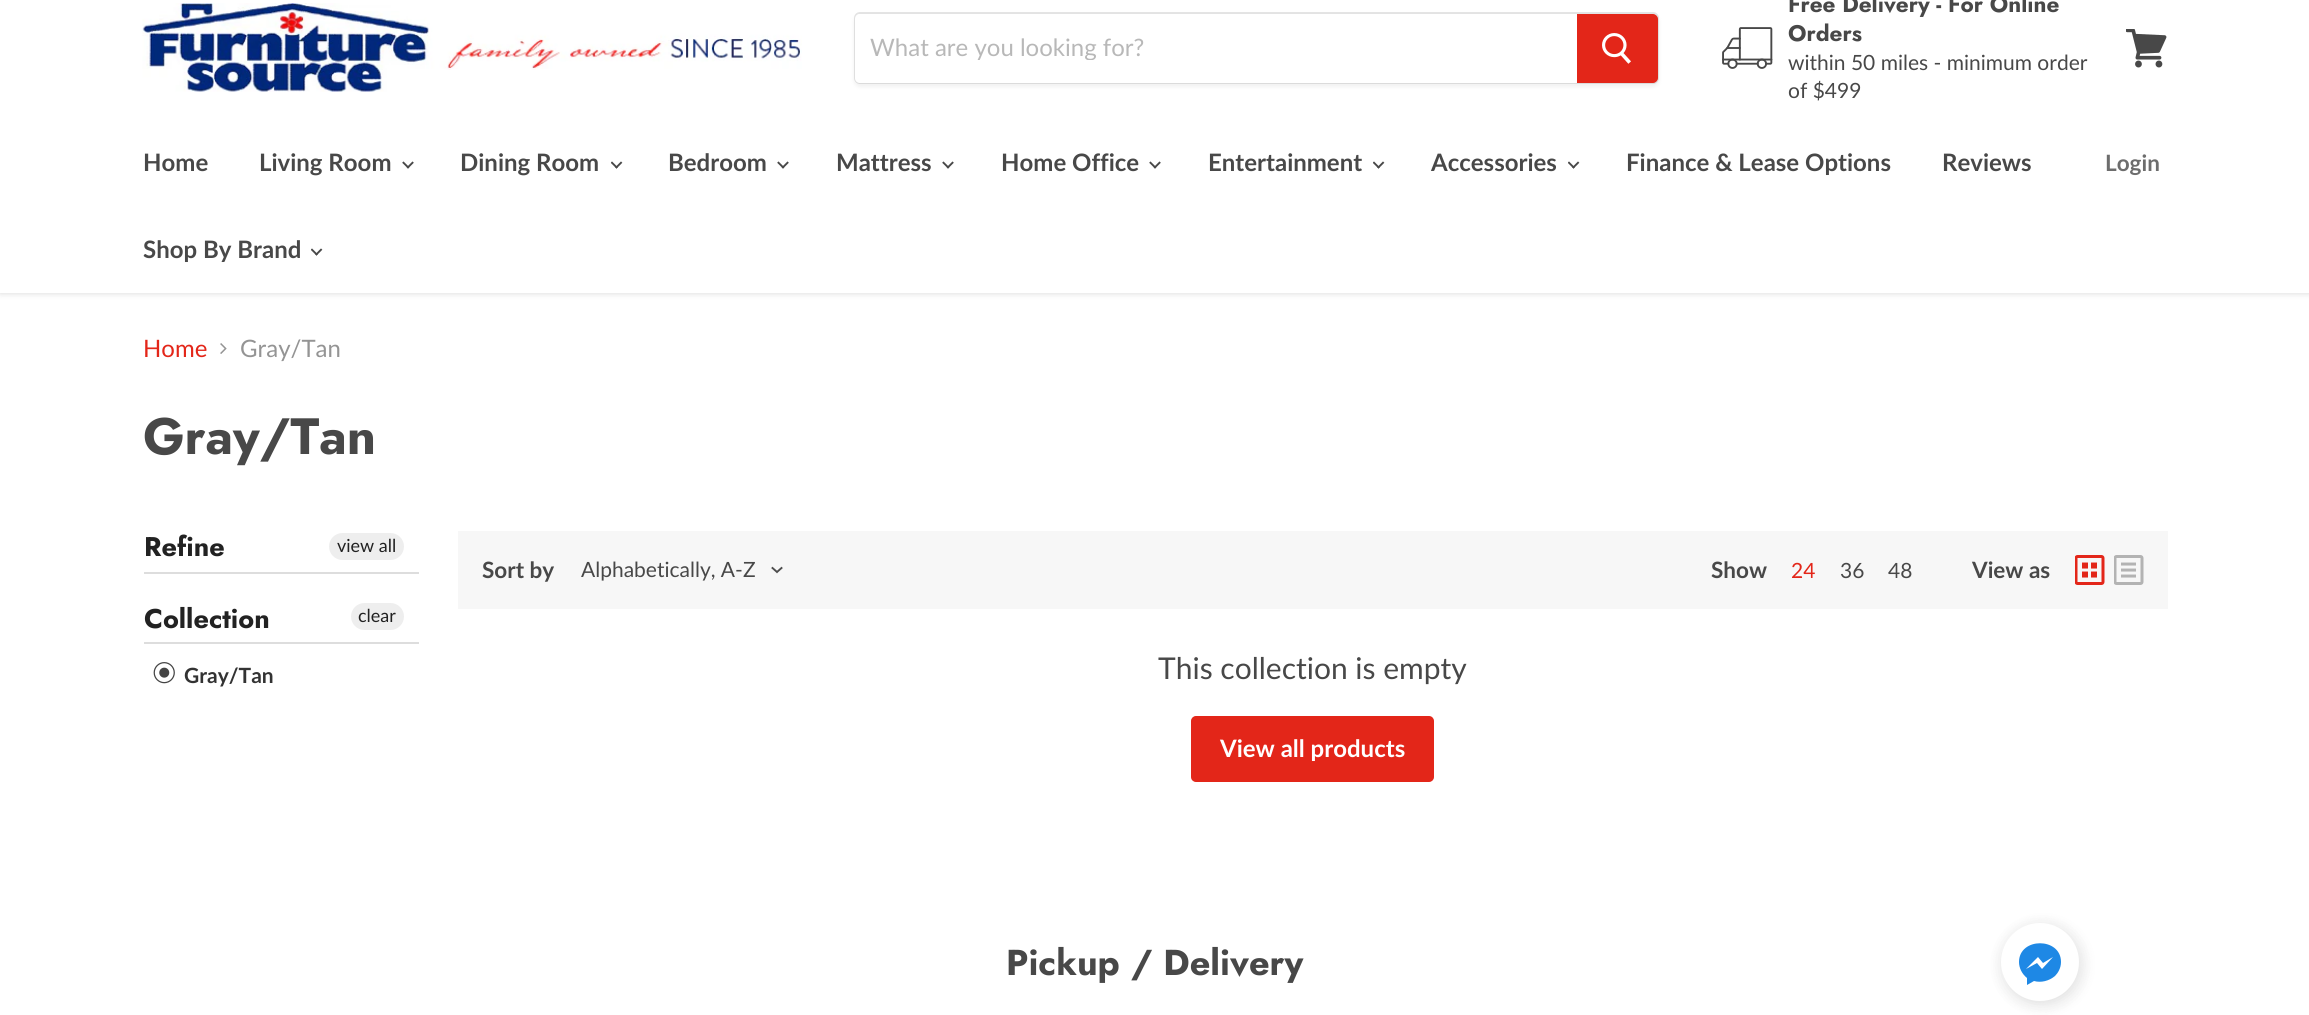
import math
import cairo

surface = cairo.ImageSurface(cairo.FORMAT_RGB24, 2309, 1015)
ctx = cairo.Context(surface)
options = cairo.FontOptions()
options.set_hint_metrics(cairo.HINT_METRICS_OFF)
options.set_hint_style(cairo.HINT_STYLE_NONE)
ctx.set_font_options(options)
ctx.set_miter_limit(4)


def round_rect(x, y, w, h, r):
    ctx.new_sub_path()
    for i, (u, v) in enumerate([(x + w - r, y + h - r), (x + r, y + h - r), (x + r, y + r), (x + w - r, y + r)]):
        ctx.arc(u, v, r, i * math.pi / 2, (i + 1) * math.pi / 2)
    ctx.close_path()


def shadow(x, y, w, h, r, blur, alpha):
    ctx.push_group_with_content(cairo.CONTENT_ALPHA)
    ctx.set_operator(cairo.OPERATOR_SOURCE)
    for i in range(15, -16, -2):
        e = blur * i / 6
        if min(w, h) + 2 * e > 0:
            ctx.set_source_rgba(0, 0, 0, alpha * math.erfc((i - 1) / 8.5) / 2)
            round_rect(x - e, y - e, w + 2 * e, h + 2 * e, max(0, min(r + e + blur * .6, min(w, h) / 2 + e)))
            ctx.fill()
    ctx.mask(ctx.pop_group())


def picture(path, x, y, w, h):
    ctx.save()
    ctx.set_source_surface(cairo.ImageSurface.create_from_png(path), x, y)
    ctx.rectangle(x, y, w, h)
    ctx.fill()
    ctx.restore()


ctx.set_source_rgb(1, 1, 1)
ctx.paint()
ctx.set_source_rgb(0.502, 0.502, 0.502)
shadow(0, -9, 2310, 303, 0, 3, 0.25)
ctx.set_source_rgb(1, 1, 1)
ctx.rectangle(0, 0, 2309, 293)
ctx.fill()
picture("img1.png", 142, 3, 660, 89)
ctx.set_source_rgb(0.502, 0.502, 0.502)
shadow(854, 15, 805, 72, 6, 2, 0.11)
round_rect(855, 13, 803, 70, 5)
ctx.set_source_rgba(0.502, 0.502, 0.502, 0.2)
ctx.stroke()
ctx.set_source_rgb(1, 1, 1)
ctx.new_path()
ctx.move_to(860, 14)
ctx.line_to(1577, 14)
ctx.line_to(1577, 83)
ctx.line_to(860, 83)
ctx.curve_to(857, 83, 855, 81, 855, 78)
ctx.line_to(855, 19)
ctx.curve_to(855, 16, 857, 14, 860, 14)
ctx.close_path()
ctx.fill()
ctx.save()
ctx.rectangle(870, 32, 692, 28)
ctx.clip()
ctx.select_font_face("Lato")
ctx.set_font_size(24)
ctx.set_source_rgb(0.722, 0.722, 0.722)
ctx.move_to(870, 56)
ctx.show_text("What are you looking for?")
ctx.restore()
ctx.set_source_rgb(0.89, 0.149, 0.098)
ctx.new_path()
ctx.move_to(1578, 15)
ctx.line_to(1653, 15)
ctx.curve_to(1655, 15, 1657, 17, 1657, 19)
ctx.line_to(1657, 78)
ctx.curve_to(1657, 80, 1655, 82, 1653, 82)
ctx.line_to(1578, 82)
ctx.close_path()
ctx.fill_preserve()
ctx.stroke()
picture("img2.png", 1602, 33, 29, 31)
picture("img3.png", 1722, 27, 51, 42)
ctx.select_font_face("Jost", cairo.FONT_SLANT_NORMAL, cairo.FONT_WEIGHT_BOLD)
ctx.set_font_size(22.5)
ctx.set_source_rgb(0.282, 0.282, 0.282)
ctx.move_to(1788, 12)
ctx.show_text("Free Delivery - For Online")
ctx.move_to(1788, 41)
ctx.show_text("Orders")
ctx.select_font_face("Lato")
ctx.set_font_size(21)
ctx.move_to(1788, 70)
ctx.show_text("within 50 miles - minimum order")
ctx.move_to(1788, 98)
ctx.show_text("of $499")
picture("img4.png", 2126, 29, 41, 39)
ctx.select_font_face("Lato", cairo.FONT_SLANT_NORMAL, cairo.FONT_WEIGHT_BOLD)
ctx.set_font_size(24)
ctx.move_to(143, 171)
ctx.show_text("Home")
ctx.move_to(259, 171)
ctx.show_text("Living Room")
picture("img5.png", 402, 161, 12, 8)
ctx.move_to(460, 171)
ctx.show_text("Dining Room")
picture("img6.png", 611, 161, 12, 8)
ctx.move_to(668, 171)
ctx.show_text("Bedroom")
picture("img5.png", 777, 161, 12, 8)
ctx.move_to(836, 171)
ctx.show_text("Mattress")
picture("img5.png", 942, 161, 12, 8)
ctx.move_to(1001, 171)
ctx.show_text("Home Office")
picture("img5.png", 1149, 161, 12, 8)
ctx.move_to(1208, 171)
ctx.show_text("Entertainment")
picture("img6.png", 1373, 161, 12, 8)
ctx.move_to(1431, 171)
ctx.show_text("Accessories")
picture("img6.png", 1568, 161, 12, 8)
ctx.move_to(1626, 171)
ctx.show_text("Finance & Lease Options")
ctx.move_to(1942, 171)
ctx.show_text("Reviews")
ctx.move_to(143, 258)
ctx.show_text("Shop By Brand")
picture("img6.png", 311, 248, 12, 8)
ctx.set_font_size(22.5)
ctx.set_source_rgb(0.427, 0.427, 0.427)
ctx.move_to(2105, 171)
ctx.show_text("Login")
ctx.select_font_face("Lato")
ctx.set_font_size(24)
ctx.set_source_rgb(0.89, 0.149, 0.098)
ctx.move_to(143, 357)
ctx.show_text("Home")
picture("img7.png", 220, 343, 7, 11)
ctx.set_source_rgb(0.58, 0.58, 0.58)
ctx.move_to(240, 357)
ctx.show_text("Gray/Tan")
ctx.select_font_face("Jost", cairo.FONT_SLANT_NORMAL, cairo.FONT_WEIGHT_BOLD)
ctx.set_font_size(51)
ctx.set_source_rgb(0.282, 0.282, 0.282)
ctx.move_to(143, 454)
ctx.show_text("Gray/Tan")
ctx.set_source_rgb(0.867, 0.867, 0.867)
ctx.rectangle(144, 572, 275, 2)
ctx.fill()
ctx.set_font_size(27)
ctx.set_source_rgb(0.133, 0.133, 0.133)
ctx.move_to(144, 556)
ctx.show_text("Refine")
ctx.set_source_rgb(0.933, 0.933, 0.933)
round_rect(329, 533, 75, 27, 13.5)
ctx.fill()
ctx.select_font_face("Lato")
ctx.set_font_size(18)
ctx.set_source_rgb(0.133, 0.133, 0.133)
ctx.move_to(337, 552)
ctx.show_text("view all")
ctx.set_source_rgb(0.867, 0.867, 0.867)
ctx.rectangle(144, 642, 275, 2)
ctx.fill()
ctx.select_font_face("Jost", cairo.FONT_SLANT_NORMAL, cairo.FONT_WEIGHT_BOLD)
ctx.set_font_size(27)
ctx.set_source_rgb(0.133, 0.133, 0.133)
ctx.move_to(144, 628)
ctx.show_text("Collection")
ctx.set_source_rgb(0.933, 0.933, 0.933)
round_rect(351, 603, 53, 27, 13.5)
ctx.fill()
ctx.select_font_face("Lato")
ctx.set_font_size(18)
ctx.set_source_rgb(0.133, 0.133, 0.133)
ctx.move_to(358, 622)
ctx.show_text("clear")
picture("img8.png", 153, 662, 22, 22)
ctx.select_font_face("Lato", cairo.FONT_SLANT_NORMAL, cairo.FONT_WEIGHT_BOLD)
ctx.set_font_size(21)
ctx.set_source_rgb(0.2, 0.2, 0.2)
ctx.move_to(184, 683)
ctx.show_text("Gray/Tan")
ctx.set_source_rgb(0.965, 0.965, 0.965)
ctx.rectangle(458, 531, 1710, 78)
ctx.fill()
ctx.set_font_size(22.5)
ctx.set_source_rgb(0.282, 0.282, 0.282)
ctx.move_to(482, 578)
ctx.show_text("Sort by")
ctx.select_font_face("Lato")
ctx.set_font_size(21)
ctx.move_to(581, 577)
ctx.show_text("Alphabetically, A-Z")
ctx.new_path()
ctx.move_to(777, 572)
ctx.line_to(781.5, 568)
ctx.move_to(777, 572)
ctx.line_to(772.5, 568)
ctx.set_source_rgb(0.302, 0.302, 0.302)
ctx.set_line_width(1.9)
ctx.set_line_cap(cairo.LINE_CAP_SQUARE)
ctx.stroke()
ctx.select_font_face("Lato", cairo.FONT_SLANT_NORMAL, cairo.FONT_WEIGHT_BOLD)
ctx.set_font_size(22.5)
ctx.set_source_rgb(0.282, 0.282, 0.282)
ctx.move_to(1711, 578)
ctx.show_text("Show")
ctx.select_font_face("Lato")
ctx.set_font_size(21)
ctx.set_source_rgb(0.89, 0.149, 0.098)
ctx.move_to(1791, 578)
ctx.show_text("24")
ctx.set_source_rgb(0.282, 0.282, 0.282)
ctx.move_to(1840, 578)
ctx.show_text("36")
ctx.move_to(1888, 578)
ctx.show_text("48")
ctx.select_font_face("Lato", cairo.FONT_SLANT_NORMAL, cairo.FONT_WEIGHT_BOLD)
ctx.set_font_size(22.5)
ctx.move_to(1972, 578)
ctx.show_text("View as")
picture("img9.png", 2075, 555, 30, 30)
picture("img10.png", 2114, 555, 30, 30)
ctx.select_font_face("Lato")
ctx.set_font_size(30)
ctx.move_to(1158, 679)
ctx.show_text("This collection is empty")
ctx.set_source_rgb(0.89, 0.149, 0.098)
round_rect(1192, 717, 241, 64, 4)
ctx.fill_preserve()
ctx.set_line_width(2)
ctx.set_line_cap(cairo.LINE_CAP_BUTT)
ctx.stroke()
ctx.select_font_face("Lato", cairo.FONT_SLANT_NORMAL, cairo.FONT_WEIGHT_BOLD)
ctx.set_font_size(24)
ctx.set_source_rgb(1, 1, 1)
ctx.move_to(1220, 757)
ctx.show_text("View all products")
ctx.select_font_face("Jost", cairo.FONT_SLANT_NORMAL, cairo.FONT_WEIGHT_BOLD)
ctx.set_font_size(36)
ctx.set_source_rgb(0.282, 0.282, 0.282)
ctx.move_to(1006, 975)
ctx.show_text("Pickup / Delivery")
ctx.set_source_rgb(0, 0, 0)
shadow(2001, 923, 84, 84, 42, 7, 0.07)
shadow(2001, 926, 78, 78, 39, 7.5, 0.05)
ctx.set_source_rgb(1, 1, 1)
ctx.arc(2040, 962, 39, 0, 2 * math.pi)
ctx.fill()
ctx.set_source_rgb(0.118, 0.533, 0.898)
ctx.set_fill_rule(cairo.FILL_RULE_EVEN_ODD)
ctx.new_path()
ctx.move_to(2019, 962)
ctx.curve_to(2019, 937, 2061, 937, 2061, 962)
ctx.curve_to(2061, 968, 2058, 973, 2055, 976)
ctx.curve_to(2049, 981, 2041, 983, 2034, 981)
ctx.line_to(2027, 985)
ctx.line_to(2027, 978)
ctx.curve_to(2022, 974, 2019, 968, 2019, 962)
ctx.close_path()
ctx.move_to(2037, 963)
ctx.line_to(2042, 969)
ctx.line_to(2053, 957)
ctx.line_to(2043, 963)
ctx.line_to(2038, 957)
ctx.line_to(2026, 969)
ctx.close_path()
ctx.fill()
surface.write_to_png("page.png")
